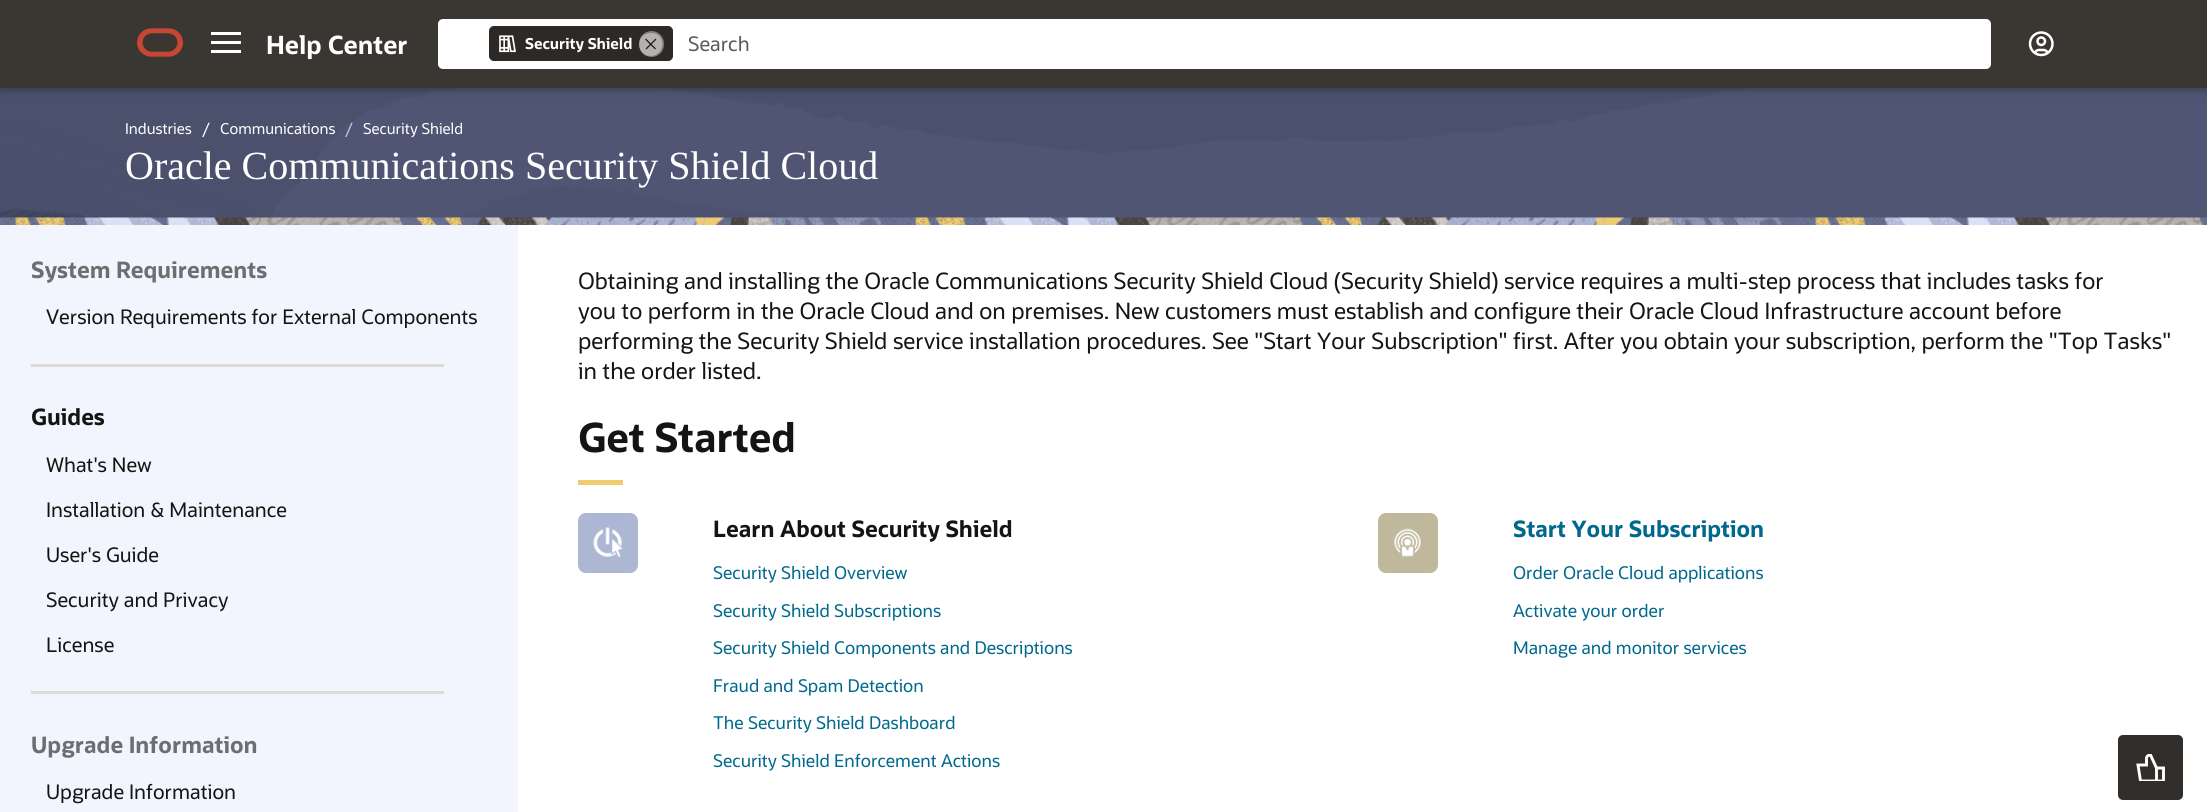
import math
import cairo

surface = cairo.ImageSurface(cairo.FORMAT_RGB24, 2207, 812)
ctx = cairo.Context(surface)
options = cairo.FontOptions()
options.set_hint_metrics(cairo.HINT_METRICS_OFF)
options.set_hint_style(cairo.HINT_STYLE_NONE)
ctx.set_font_options(options)
ctx.set_miter_limit(4)


def round_rect(x, y, w, h, r):
    ctx.new_sub_path()
    for i, (u, v) in enumerate([(x + w - r, y + h - r), (x + r, y + h - r), (x + r, y + r), (x + w - r, y + r)]):
        ctx.arc(u, v, r, i * math.pi / 2, (i + 1) * math.pi / 2)
    ctx.close_path()


def shadow(x, y, w, h, r, blur, alpha):
    ctx.push_group_with_content(cairo.CONTENT_ALPHA)
    ctx.set_operator(cairo.OPERATOR_SOURCE)
    for i in range(15, -16, -2):
        e = blur * i / 6
        if min(w, h) + 2 * e > 0:
            ctx.set_source_rgba(0, 0, 0, alpha * math.erfc((i - 1) / 8.5) / 2)
            round_rect(x - e, y - e, w + 2 * e, h + 2 * e, max(0, min(r + e + blur * .6, min(w, h) / 2 + e)))
            ctx.fill()
    ctx.mask(ctx.pop_group())


def picture(path, x, y, w, h):
    ctx.save()
    ctx.set_source_surface(cairo.ImageSurface.create_from_png(path), x, y)
    ctx.rectangle(x, y, w, h)
    ctx.fill()
    ctx.restore()


ctx.set_source_rgb(1, 1, 1)
ctx.paint()
picture("img4.png", 0, 88, 2207, 130)
ctx.set_source_rgb(0, 0, 0)
shadow(0, 3, 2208, 87, 0, 6, 0.15)
ctx.set_source_rgb(0.227, 0.212, 0.196)
ctx.rectangle(0, 0, 2207, 88)
ctx.fill()
picture("img1.png", 137, 28, 46, 29)
ctx.new_path()
ctx.move_to(211, 33.5)
ctx.line_to(241, 33.5)
ctx.move_to(211, 42.5)
ctx.line_to(241, 42.5)
ctx.move_to(211, 51.5)
ctx.line_to(241, 51.5)
ctx.set_source_rgb(1, 1, 1)
ctx.set_line_width(3)
ctx.stroke()
ctx.select_font_face("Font", cairo.FONT_SLANT_NORMAL, cairo.FONT_WEIGHT_BOLD)
ctx.set_font_size(25)
ctx.move_to(266, 54)
ctx.show_text("Help Center")
round_rect(438, 19, 1553, 50, 5)
ctx.fill()
ctx.set_source_rgb(0.173, 0.161, 0.149)
round_rect(489.5, 26.5, 183, 34, 4.5)
ctx.fill_preserve()
ctx.set_line_width(1)
ctx.stroke()
picture("img2.png", 499, 35, 17, 18)
ctx.set_font_size(15)
ctx.set_source_rgb(1, 1, 1)
ctx.move_to(525, 49)
ctx.show_text("Security Shield")
ctx.set_source_rgb(0.502, 0.498, 0.49)
round_rect(638.5, 30.5, 26, 27, 13)
ctx.fill_preserve()
ctx.set_source_rgb(0.173, 0.161, 0.149)
ctx.stroke()
ctx.set_source_rgba(1, 1, 1, 0.4)
ctx.new_path()
ctx.move_to(650.5, 33)
ctx.curve_to(635.5, 33, 635.5, 56, 650.5, 56)
ctx.curve_to(665.5, 56, 666.5, 33, 651.5, 33)
ctx.close_path()
ctx.fill()
ctx.new_path()
ctx.move_to(645.5, 39)
ctx.line_to(655.5, 49)
ctx.move_to(656, 39)
ctx.line_to(646, 49)
ctx.set_source_rgb(0.086, 0.082, 0.075)
ctx.set_line_width(1.2)
ctx.stroke()
ctx.select_font_face("Font")
ctx.set_font_size(20)
ctx.set_source_rgb(0.361, 0.357, 0.353)
ctx.move_to(688, 51)
ctx.show_text("Search")
picture("img3.png", 2028, 31, 26, 26)
gradient = cairo.LinearGradient(1104, 87, 1104, 94)
gradient.add_color_stop_rgba(0, 0, 0, 0, 0.12)
gradient.add_color_stop_rgba(1, 0, 0, 0, 0)
ctx.set_source(gradient)
ctx.rectangle(0, 88, 2207, 5)
ctx.fill()
ctx.set_font_size(15)
ctx.set_source_rgb(1, 1, 1)
ctx.move_to(125, 134)
ctx.show_text("Industries")
ctx.move_to(202, 134)
ctx.show_text("/")
ctx.move_to(220, 134)
ctx.show_text("Communications")
ctx.set_source_rgb(0.8, 0.8, 0.8)
ctx.move_to(345, 134)
ctx.show_text("/")
ctx.set_source_rgb(1, 1, 1)
ctx.move_to(363, 134)
ctx.show_text("Security Shield")
ctx.select_font_face("Liberation Serif")
ctx.set_font_size(40)
ctx.move_to(125, 179)
ctx.show_text("Oracle Communications Security Shield Cloud")
picture("img5.png", 0, 217, 2207, 8)
ctx.set_source_rgb(0.949, 0.957, 0.996)
ctx.rectangle(0, 225, 518, 587)
ctx.fill()
ctx.select_font_face("Font", cairo.FONT_SLANT_NORMAL, cairo.FONT_WEIGHT_BOLD)
ctx.set_font_size(22.5)
ctx.set_source_rgb(0.431, 0.431, 0.443)
ctx.move_to(31, 278)
ctx.show_text("System Requirements")
ctx.select_font_face("Font")
ctx.set_font_size(20)
ctx.set_source_rgb(0.086, 0.082, 0.075)
ctx.move_to(46, 324)
ctx.show_text("Version Requirements for External Components")
ctx.set_source_rgb(0.871, 0.855, 0.839)
ctx.rectangle(31, 364, 413, 3)
ctx.fill()
ctx.select_font_face("Font", cairo.FONT_SLANT_NORMAL, cairo.FONT_WEIGHT_BOLD)
ctx.set_font_size(22.5)
ctx.set_source_rgb(0.086, 0.082, 0.075)
ctx.move_to(31, 425)
ctx.show_text("Guides")
ctx.select_font_face("Font")
ctx.set_font_size(20)
ctx.move_to(46, 472)
ctx.show_text("What's New")
ctx.move_to(46, 517)
ctx.show_text("Installation & Maintenance")
ctx.move_to(46, 562)
ctx.show_text("User's Guide")
ctx.move_to(46, 607)
ctx.show_text("Security and Privacy")
ctx.move_to(46, 652)
ctx.show_text("License")
ctx.set_source_rgb(0.871, 0.855, 0.839)
ctx.rectangle(31, 691, 413, 3)
ctx.fill()
ctx.select_font_face("Font", cairo.FONT_SLANT_NORMAL, cairo.FONT_WEIGHT_BOLD)
ctx.set_font_size(22.5)
ctx.set_source_rgb(0.431, 0.431, 0.443)
ctx.move_to(31, 753)
ctx.show_text("Upgrade Information")
ctx.select_font_face("Font")
ctx.set_font_size(20)
ctx.set_source_rgb(0.086, 0.082, 0.075)
ctx.move_to(46, 799)
ctx.show_text("Upgrade Information")
ctx.set_font_size(22.5)
ctx.move_to(578, 289)
ctx.show_text("Obtaining and installing the Oracle Communications Security Shield Cloud (Security Shield) service requires a multi-step process that includes tasks for")
ctx.move_to(578, 319)
ctx.show_text("you to perform in the Oracle Cloud and on premises. New customers must establish and configure their Oracle Cloud Infrastructure account before")
ctx.move_to(578, 349)
ctx.show_text("performing the Security Shield service installation procedures. See \"Start Your Subscription\" first. After you obtain your subscription, perform the \"Top Tasks\"")
ctx.move_to(578, 379)
ctx.show_text("in the order listed.")
ctx.select_font_face("Font", cairo.FONT_SLANT_NORMAL, cairo.FONT_WEIGHT_BOLD)
ctx.set_font_size(40)
ctx.move_to(578, 452)
ctx.show_text("Get Started")
ctx.set_source_rgb(0.941, 0.8, 0.443)
ctx.rectangle(578, 480, 45, 5)
ctx.fill()
ctx.set_source_rgb(0.678, 0.714, 0.824)
round_rect(578, 513, 60, 60, 8)
ctx.fill()
picture("img6.png", 592, 527, 31, 31)
ctx.set_font_size(22.5)
ctx.set_source_rgb(0.086, 0.082, 0.075)
ctx.move_to(713, 537)
ctx.show_text("Learn About Security Shield")
ctx.select_font_face("Font")
ctx.set_font_size(17.5)
ctx.set_source_rgb(0, 0.408, 0.549)
ctx.move_to(713, 579)
ctx.show_text("Security Shield Overview")
ctx.move_to(713, 617)
ctx.show_text("Security Shield Subscriptions")
ctx.move_to(713, 654)
ctx.show_text("Security Shield Components and Descriptions")
ctx.move_to(713, 692)
ctx.show_text("Fraud and Spam Detection")
ctx.move_to(713, 729)
ctx.show_text("The Security Shield Dashboard")
ctx.move_to(713, 767)
ctx.show_text("Security Shield Enforcement Actions")
ctx.set_source_rgb(0.753, 0.722, 0.616)
round_rect(1378, 513, 60, 60, 8)
ctx.fill()
picture("img7.png", 1394, 528, 27, 29)
ctx.select_font_face("Font", cairo.FONT_SLANT_NORMAL, cairo.FONT_WEIGHT_BOLD)
ctx.set_font_size(22.5)
ctx.set_source_rgb(0, 0.408, 0.549)
ctx.move_to(1513, 537)
ctx.show_text("Start Your Subscription")
ctx.select_font_face("Font")
ctx.set_font_size(17.5)
ctx.move_to(1513, 579)
ctx.show_text("Order Oracle Cloud applications")
ctx.move_to(1513, 617)
ctx.show_text("Activate your order")
ctx.move_to(1513, 654)
ctx.show_text("Manage and monitor services")
ctx.set_source_rgb(0.192, 0.176, 0.165)
round_rect(2118, 735, 65, 65, 5)
ctx.fill()
ctx.save()
ctx.rectangle(2135, 754, 30, 27)
ctx.clip()
ctx.new_path()
ctx.move_to(2156.5, 768)
ctx.line_to(2150.5, 755)
ctx.curve_to(2147.5, 755, 2146.5, 757, 2146.5, 758)
ctx.line_to(2146.5, 765)
ctx.line_to(2138, 765)
ctx.line_to(2140.5, 781)
ctx.line_to(2156.5, 781)
ctx.move_to(2156.5, 768)
ctx.line_to(2163.5, 768)
ctx.line_to(2163.5, 781)
ctx.line_to(2156.5, 781)
ctx.move_to(2156.5, 768)
ctx.line_to(2156.5, 781)
ctx.set_source_rgb(1, 1, 1)
ctx.set_line_width(2.9)
ctx.stroke()
ctx.restore()
surface.write_to_png("page.png")
